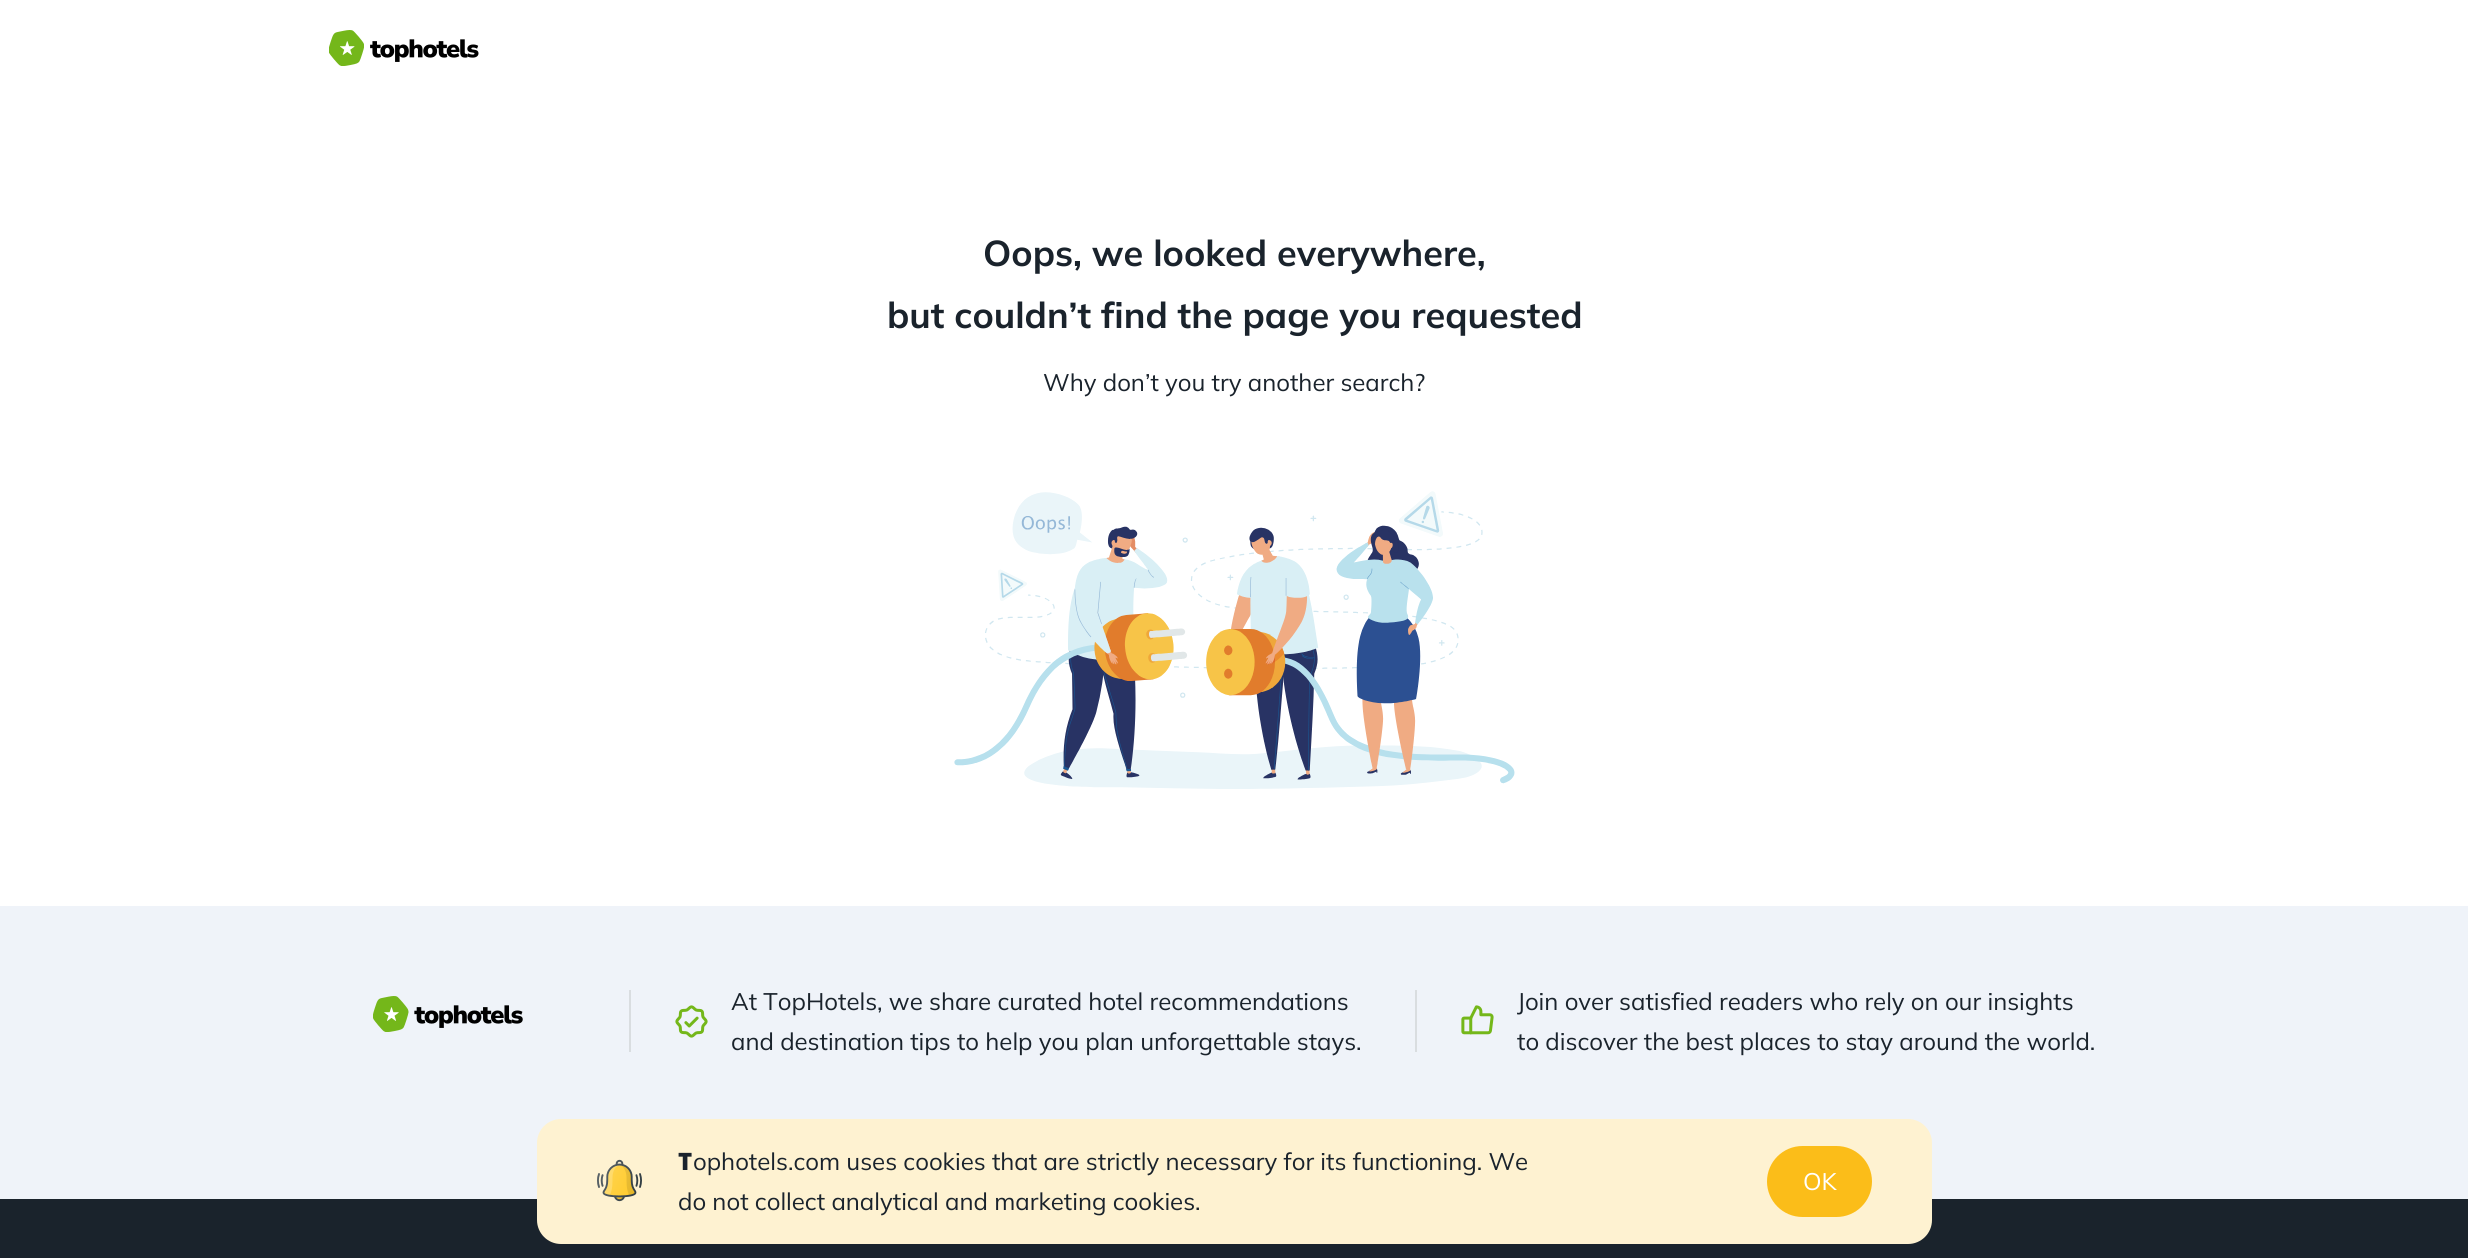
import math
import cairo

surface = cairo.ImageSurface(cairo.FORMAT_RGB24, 2468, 1258)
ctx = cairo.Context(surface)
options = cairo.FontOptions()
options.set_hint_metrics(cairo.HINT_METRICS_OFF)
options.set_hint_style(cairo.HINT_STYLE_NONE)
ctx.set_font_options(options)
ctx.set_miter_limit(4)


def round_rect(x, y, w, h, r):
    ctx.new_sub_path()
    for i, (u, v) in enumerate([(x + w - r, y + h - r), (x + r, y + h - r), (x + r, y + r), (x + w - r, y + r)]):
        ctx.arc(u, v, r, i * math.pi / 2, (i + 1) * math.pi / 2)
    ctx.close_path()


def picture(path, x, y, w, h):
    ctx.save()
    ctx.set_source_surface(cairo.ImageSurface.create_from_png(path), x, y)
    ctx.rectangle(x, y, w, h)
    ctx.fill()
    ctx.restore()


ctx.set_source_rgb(1, 1, 1)
ctx.paint()
picture("img1.png", 329, 30, 150, 36)
ctx.select_font_face("Mulish", cairo.FONT_SLANT_NORMAL, cairo.FONT_WEIGHT_BOLD)
ctx.set_font_size(36)
ctx.set_source_rgb(0.102, 0.137, 0.173)
ctx.move_to(983, 266)
ctx.show_text("Oops, we looked everywhere,")
ctx.move_to(887, 328)
ctx.show_text("but couldn’t find the page you requested")
ctx.select_font_face("Mulish")
ctx.set_font_size(24)
ctx.move_to(1043, 391)
ctx.show_text("Why don’t you try another search?")
picture("img2.png", 954, 491, 561, 298)
ctx.set_source_rgb(0.937, 0.953, 0.976)
ctx.rectangle(0, 906, 2468, 293)
ctx.fill()
picture("img3.png", 373, 996, 150, 36)
ctx.set_source_rgb(0.851, 0.867, 0.878)
ctx.rectangle(629, 990, 2, 62)
ctx.fill()
picture("img4.png", 675, 1005, 33, 33)
ctx.set_source_rgb(0.102, 0.137, 0.173)
ctx.move_to(731, 1010)
ctx.show_text("At TopHotels, we share curated hotel recommendations")
ctx.move_to(731, 1050)
ctx.show_text("and destination tips to help you plan unforgettable stays.")
ctx.set_source_rgb(0.851, 0.867, 0.878)
ctx.rectangle(1415, 990, 2, 62)
ctx.fill()
picture("img5.png", 1461, 1005, 33, 30)
ctx.set_source_rgb(0.102, 0.137, 0.173)
ctx.move_to(1517, 1010)
ctx.show_text("Join over satisfied readers who rely on our insights")
ctx.move_to(1517, 1050)
ctx.show_text("to discover the best places to stay around the world.")
ctx.rectangle(0, 1199, 2468, 59)
ctx.fill()
ctx.set_source_rgb(0.996, 0.949, 0.82)
round_rect(537, 1119, 1395, 125, 24)
ctx.fill()
picture("img6.png", 597, 1159, 45, 43)
ctx.select_font_face("Noto Sans Black")
ctx.set_source_rgb(0.102, 0.137, 0.173)
ctx.move_to(678, 1170)
ctx.show_text("T")
ctx.select_font_face("Mulish")
ctx.move_to(693, 1170)
ctx.show_text("ophotels.com uses cookies that are strictly necessary for its functioning. We")
ctx.move_to(678, 1210)
ctx.show_text("do not collect analytical and marketing cookies.")
ctx.set_source_rgb(0.984, 0.741, 0.098)
round_rect(1767, 1146, 105, 71, 35.5)
ctx.fill()
ctx.set_source_rgb(1, 1, 1)
ctx.move_to(1803, 1190)
ctx.show_text("OK")
surface.write_to_png("page.png")
